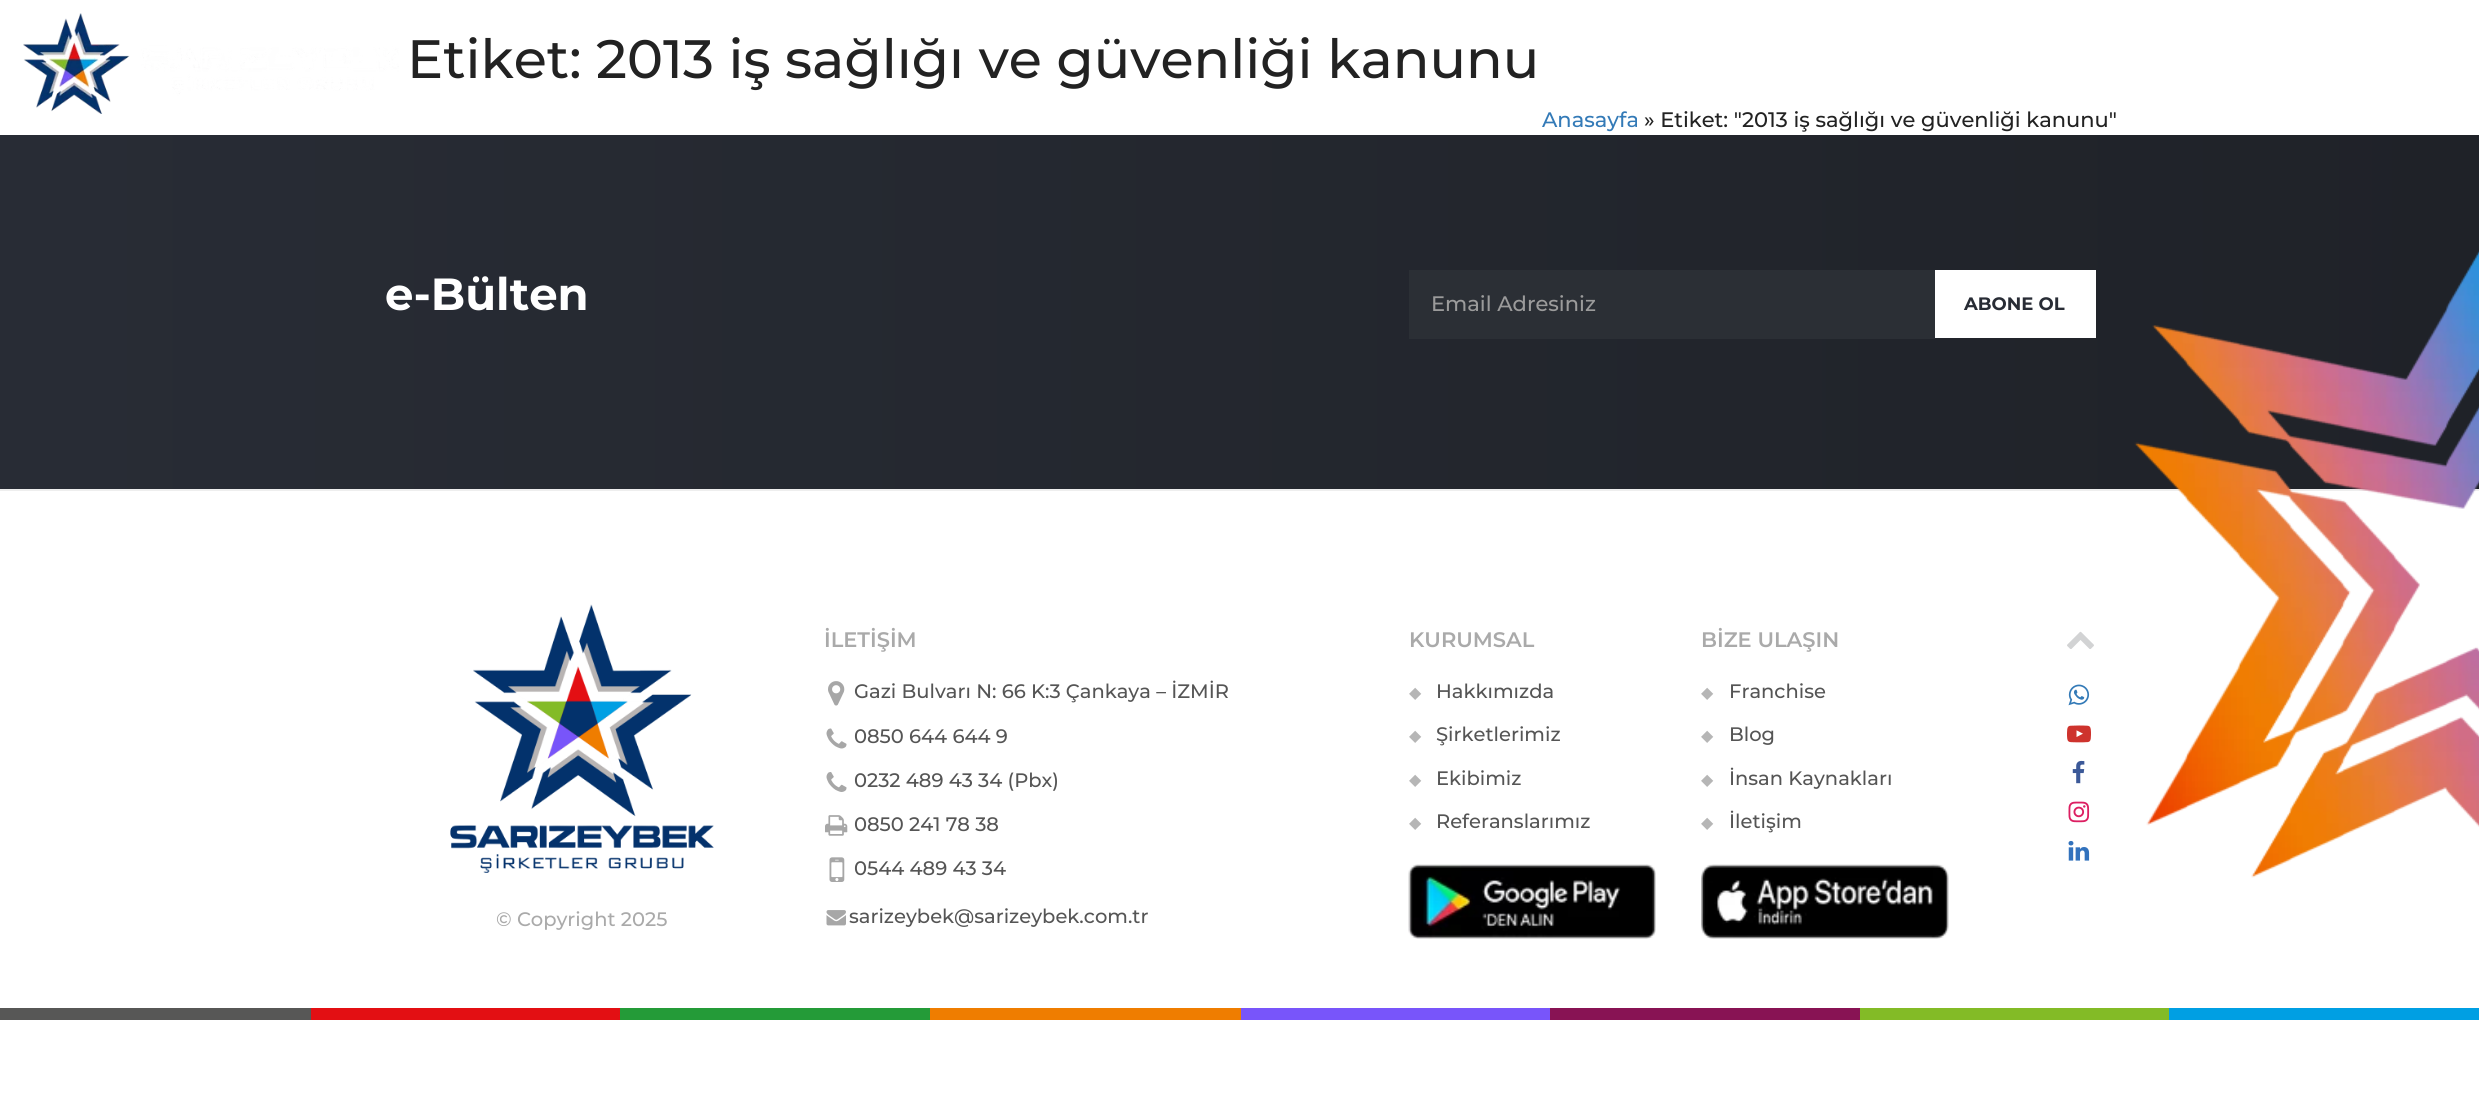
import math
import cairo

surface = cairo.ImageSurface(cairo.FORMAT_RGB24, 2479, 1103)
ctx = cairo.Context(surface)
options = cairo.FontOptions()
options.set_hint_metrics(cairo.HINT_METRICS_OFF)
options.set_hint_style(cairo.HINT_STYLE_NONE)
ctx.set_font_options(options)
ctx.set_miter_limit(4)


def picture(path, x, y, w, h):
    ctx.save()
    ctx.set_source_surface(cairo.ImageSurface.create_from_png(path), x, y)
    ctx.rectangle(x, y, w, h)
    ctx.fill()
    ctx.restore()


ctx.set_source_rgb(1, 1, 1)
ctx.paint()
ctx.set_source_rgba(1, 1, 1, 0.1)
ctx.rectangle(1606, 128, 407, 2)
ctx.fill()
picture("img1.png", 23, 13, 376, 101)
ctx.select_font_face("Montserrat Medium")
ctx.set_font_size(54)
ctx.set_source_rgb(0.133, 0.133, 0.133)
ctx.move_to(407, 78)
ctx.show_text("Etiket: 2013 iş sağlığı ve güvenliği kanunu")
ctx.set_font_size(21)
ctx.set_source_rgb(0.2, 0.478, 0.718)
ctx.move_to(1542, 127)
ctx.show_text("Anasayfa")
ctx.set_source_rgb(0.133, 0.133, 0.133)
ctx.move_to(1644, 127)
ctx.show_text("» Etiket: \"2013 iş sağlığı ve güvenliği kanunu\"")
gradient = cairo.LinearGradient(0, 312, 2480, 312)
gradient.add_color_stop_rgba(0.01, 0.157, 0.173, 0.208, 1)
gradient.add_color_stop_rgba(1, 0.122, 0.133, 0.157, 1)
ctx.set_source(gradient)
ctx.rectangle(0, 135, 2479, 354)
ctx.fill()
ctx.select_font_face("Montserrat", cairo.FONT_SLANT_NORMAL, cairo.FONT_WEIGHT_BOLD)
ctx.set_font_size(45)
ctx.set_source_rgb(1, 1, 1)
ctx.move_to(385, 310)
ctx.show_text("e-Bülten")
ctx.set_source_rgb(0.169, 0.184, 0.208)
ctx.rectangle(1409, 270, 526, 69)
ctx.fill()
ctx.select_font_face("Montserrat Medium")
ctx.set_font_size(21)
ctx.set_source_rgb(0.608, 0.608, 0.608)
ctx.move_to(1431, 311)
ctx.show_text("Email Adresiniz")
ctx.set_source_rgb(1, 1, 1)
ctx.rectangle(1935, 270, 161, 68)
ctx.fill()
ctx.select_font_face("Montserrat", cairo.FONT_SLANT_NORMAL, cairo.FONT_WEIGHT_BOLD)
ctx.set_font_size(18)
ctx.set_source_rgb(0.157, 0.173, 0.208)
ctx.move_to(1964, 310)
ctx.show_text("ABONE OL")
ctx.set_source_rgb(0.933, 0.933, 0.933)
ctx.rectangle(0, 489, 2479, 2)
ctx.fill()
ctx.select_font_face("Montserrat SemiBold")
ctx.set_font_size(21)
ctx.set_source_rgb(0.667, 0.667, 0.667)
ctx.move_to(824, 647)
ctx.show_text("İLETİŞİM")
picture("img2.png", 828, 681, 17, 25)
ctx.select_font_face("Montserrat Medium")
ctx.set_font_size(19.5)
ctx.set_source_rgb(0.333, 0.333, 0.333)
ctx.move_to(854, 698)
ctx.show_text("Gazi Bulvarı N: 66 K:3 Çankaya – İZMİR")
picture("img3.png", 826, 728, 21, 21)
ctx.move_to(854, 743)
ctx.show_text("0850 644 644 9")
picture("img4.png", 826, 772, 21, 20)
ctx.move_to(854, 787)
ctx.show_text("0232 489 43 34 (Pbx)")
picture("img5.png", 825, 815, 23, 21)
ctx.move_to(854, 831)
ctx.show_text("0850 241 78 38")
picture("img6.png", 829, 857, 16, 25)
ctx.move_to(854, 875)
ctx.show_text("0544 489 43 34")
picture("img7.png", 826, 910, 20, 16)
ctx.move_to(849, 923)
ctx.show_text("sarizeybek@sarizeybek.com.tr")
ctx.select_font_face("Montserrat SemiBold")
ctx.set_font_size(21)
ctx.set_source_rgb(0.667, 0.667, 0.667)
ctx.move_to(1409, 647)
ctx.show_text("KURUMSAL")
ctx.select_font_face("DejaVu Sans")
ctx.set_font_size(16)
ctx.set_source_rgb(0.714, 0.714, 0.714)
ctx.move_to(1409, 698)
ctx.show_text("◆")
ctx.select_font_face("Montserrat Medium")
ctx.set_font_size(19.5)
ctx.set_source_rgb(0.333, 0.333, 0.333)
ctx.move_to(1436, 698)
ctx.show_text("Hakkımızda")
ctx.select_font_face("DejaVu Sans")
ctx.set_font_size(16)
ctx.set_source_rgb(0.714, 0.714, 0.714)
ctx.move_to(1409, 741)
ctx.show_text("◆")
ctx.select_font_face("Montserrat Medium")
ctx.set_font_size(19.5)
ctx.set_source_rgb(0.333, 0.333, 0.333)
ctx.move_to(1436, 741)
ctx.show_text("Şirketlerimiz")
ctx.select_font_face("DejaVu Sans")
ctx.set_font_size(16)
ctx.set_source_rgb(0.714, 0.714, 0.714)
ctx.move_to(1409, 785)
ctx.show_text("◆")
ctx.select_font_face("Montserrat Medium")
ctx.set_font_size(19.5)
ctx.set_source_rgb(0.333, 0.333, 0.333)
ctx.move_to(1436, 785)
ctx.show_text("Ekibimiz")
ctx.select_font_face("DejaVu Sans")
ctx.set_font_size(16)
ctx.set_source_rgb(0.714, 0.714, 0.714)
ctx.move_to(1409, 828)
ctx.show_text("◆")
ctx.select_font_face("Montserrat Medium")
ctx.set_font_size(19.5)
ctx.set_source_rgb(0.333, 0.333, 0.333)
ctx.move_to(1436, 828)
ctx.show_text("Referanslarımız")
picture("img8.png", 1408, 864, 248, 75)
ctx.select_font_face("Montserrat SemiBold")
ctx.set_font_size(21)
ctx.set_source_rgb(0.667, 0.667, 0.667)
ctx.move_to(1701, 647)
ctx.show_text("BİZE ULAŞIN")
ctx.select_font_face("DejaVu Sans")
ctx.set_font_size(16)
ctx.set_source_rgb(0.714, 0.714, 0.714)
ctx.move_to(1701, 698)
ctx.show_text("◆")
ctx.select_font_face("Montserrat Medium")
ctx.set_font_size(19.5)
ctx.set_source_rgb(0.333, 0.333, 0.333)
ctx.move_to(1729, 698)
ctx.show_text("Franchise")
ctx.select_font_face("DejaVu Sans")
ctx.set_font_size(16)
ctx.set_source_rgb(0.714, 0.714, 0.714)
ctx.move_to(1701, 741)
ctx.show_text("◆")
ctx.select_font_face("Montserrat Medium")
ctx.set_font_size(19.5)
ctx.set_source_rgb(0.333, 0.333, 0.333)
ctx.move_to(1729, 741)
ctx.show_text("Blog")
ctx.select_font_face("DejaVu Sans")
ctx.set_font_size(16)
ctx.set_source_rgb(0.714, 0.714, 0.714)
ctx.move_to(1701, 785)
ctx.show_text("◆")
ctx.select_font_face("Montserrat Medium")
ctx.set_font_size(19.5)
ctx.set_source_rgb(0.333, 0.333, 0.333)
ctx.move_to(1729, 785)
ctx.show_text("İnsan Kaynakları")
ctx.select_font_face("DejaVu Sans")
ctx.set_font_size(16)
ctx.set_source_rgb(0.714, 0.714, 0.714)
ctx.move_to(1701, 828)
ctx.show_text("◆")
ctx.select_font_face("Montserrat Medium")
ctx.set_font_size(19.5)
ctx.set_source_rgb(0.333, 0.333, 0.333)
ctx.move_to(1729, 828)
ctx.show_text("İletişim")
picture("img9.png", 1701, 864, 248, 75)
picture("img10.png", 2067, 631, 27, 18)
picture("img11.png", 2068, 684, 22, 22)
picture("img12.png", 2067, 725, 24, 18)
picture("img13.png", 2072, 760, 13, 24)
picture("img14.png", 2068, 801, 22, 22)
picture("img15.png", 2068, 840, 22, 21)
picture("img16.png", 450, 604, 264, 269)
ctx.set_source_rgb(0.667, 0.667, 0.667)
ctx.move_to(496, 926)
ctx.show_text("© Copyright 2025")
picture("img17.png", 2134, 250, 345, 628)
ctx.set_source_rgb(0.341, 0.341, 0.337)
ctx.rectangle(0, 1008, 311, 12)
ctx.fill()
ctx.set_source_rgb(0.89, 0.059, 0.075)
ctx.rectangle(311, 1008, 309, 12)
ctx.fill()
ctx.set_source_rgb(0.141, 0.608, 0.22)
ctx.rectangle(620, 1008, 310, 12)
ctx.fill()
ctx.set_source_rgb(0.937, 0.49, 0)
ctx.rectangle(930, 1008, 311, 12)
ctx.fill()
ctx.set_source_rgb(0.471, 0.333, 0.98)
ctx.rectangle(1241, 1008, 309, 12)
ctx.fill()
ctx.set_source_rgb(0.533, 0.078, 0.329)
ctx.rectangle(1550, 1008, 310, 12)
ctx.fill()
ctx.set_source_rgb(0.514, 0.733, 0.149)
ctx.rectangle(1860, 1008, 309, 12)
ctx.fill()
ctx.set_source_rgb(0, 0.624, 0.89)
ctx.rectangle(2169, 1008, 310, 12)
ctx.fill()
surface.write_to_png("page.png")
